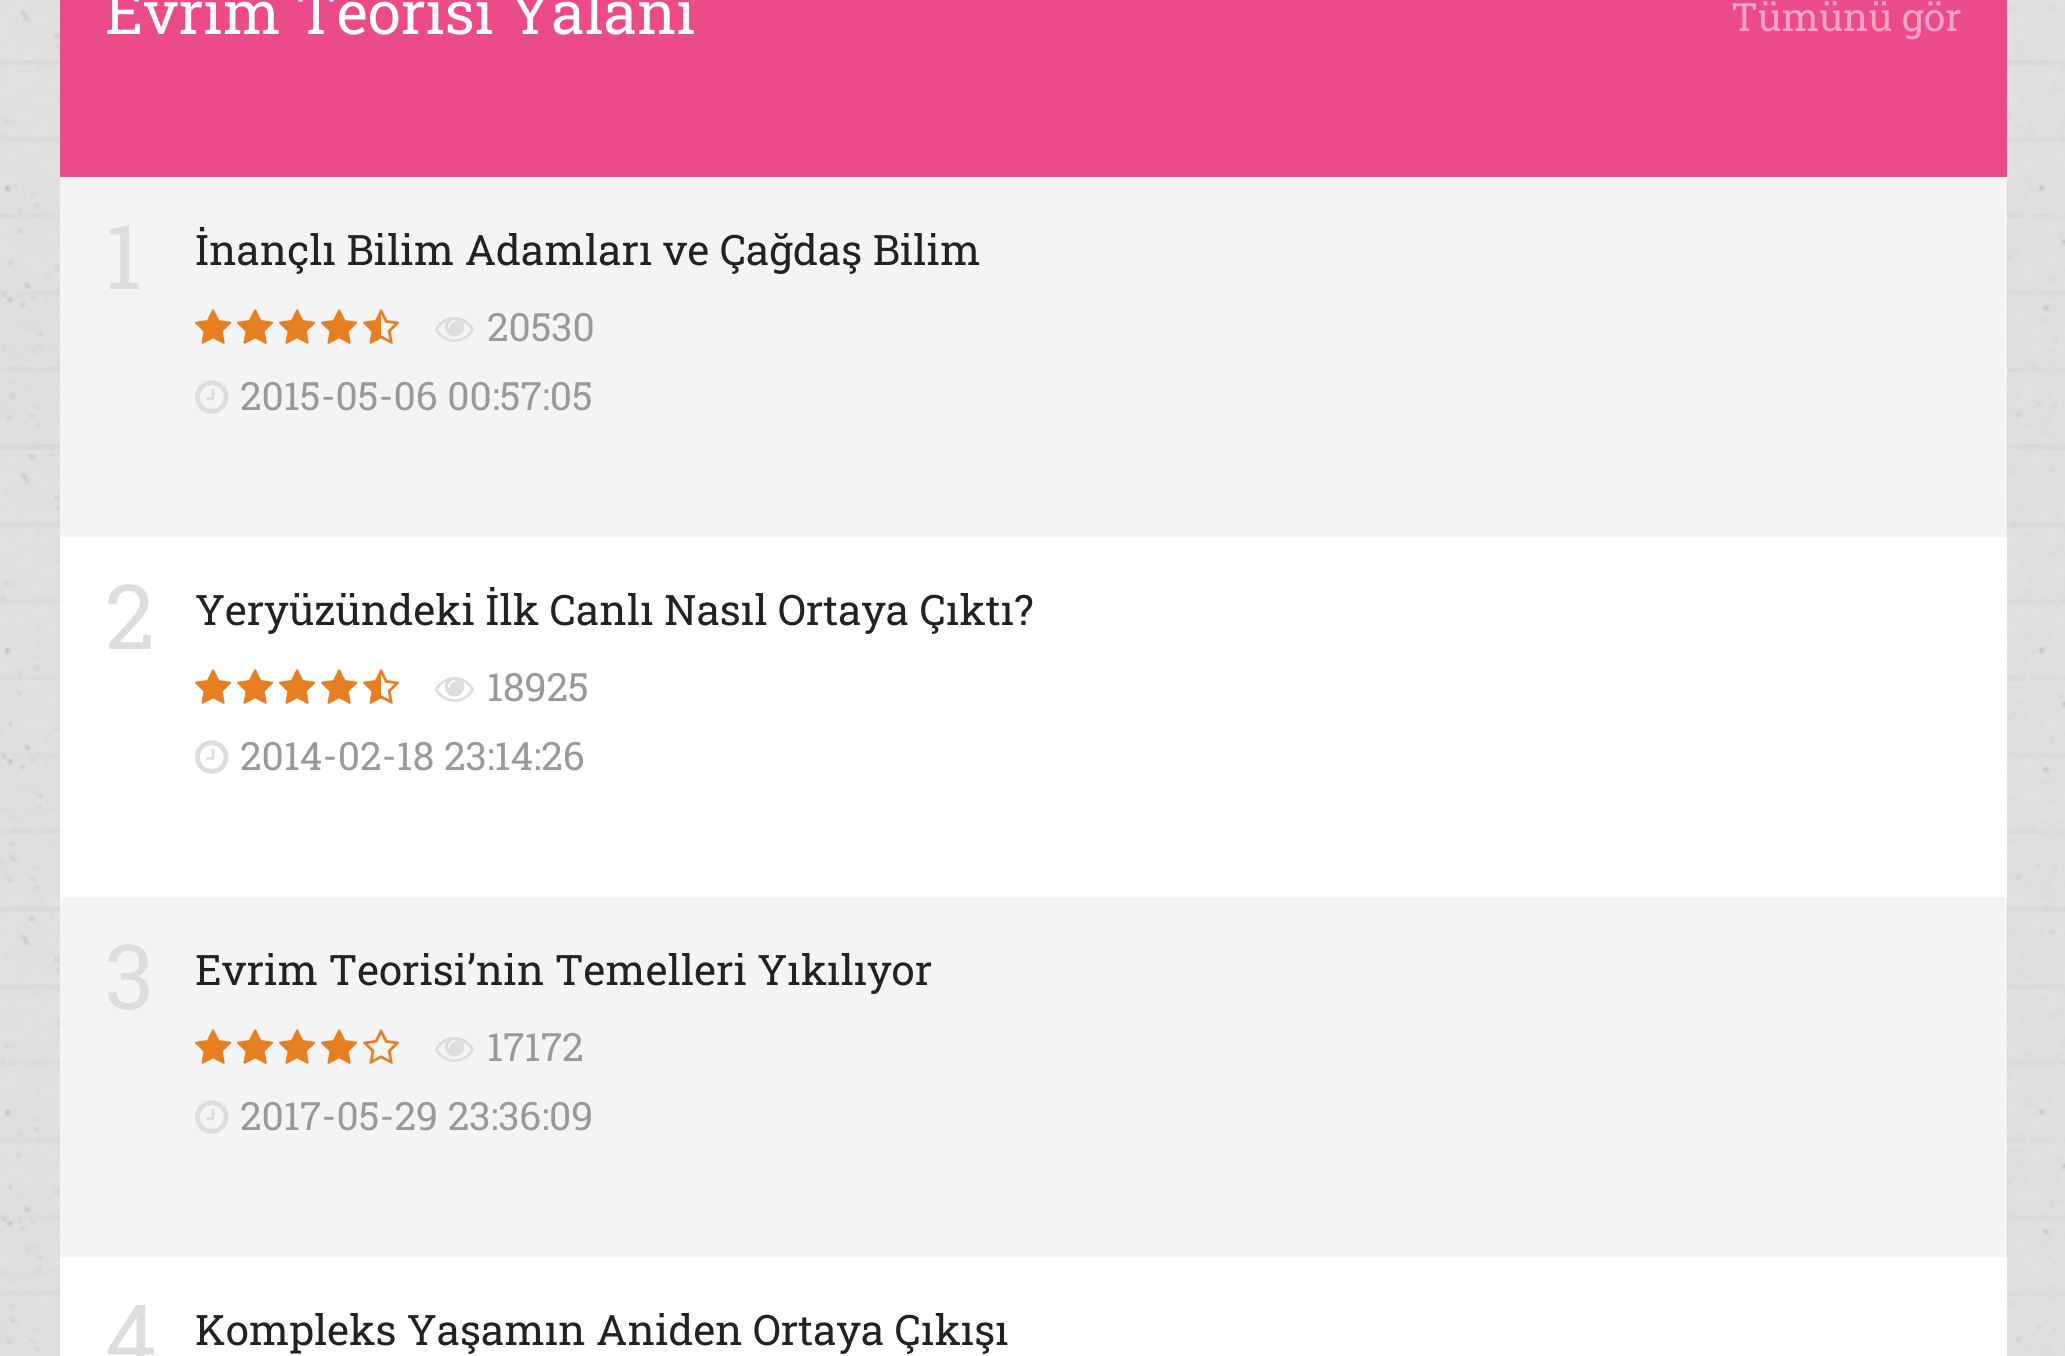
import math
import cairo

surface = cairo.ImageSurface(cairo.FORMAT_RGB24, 2065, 1356)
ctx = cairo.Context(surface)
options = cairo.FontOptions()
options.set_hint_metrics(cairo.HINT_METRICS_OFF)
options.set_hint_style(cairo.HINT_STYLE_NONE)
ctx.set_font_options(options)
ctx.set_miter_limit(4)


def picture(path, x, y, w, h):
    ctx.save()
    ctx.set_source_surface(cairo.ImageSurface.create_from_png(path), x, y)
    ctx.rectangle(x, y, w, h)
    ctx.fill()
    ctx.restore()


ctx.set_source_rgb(1, 1, 1)
ctx.paint()
picture("img1.png", 0, 0, 2065, 1356)
ctx.set_source_rgb(1, 1, 1)
ctx.rectangle(60, 537, 1947, 819)
ctx.fill()
ctx.set_source_rgb(0.918, 0.298, 0.537)
ctx.rectangle(60, 0, 1947, 177)
ctx.fill()
ctx.select_font_face("Roboto Slab")
ctx.set_font_size(60)
ctx.set_source_rgb(1, 1, 1)
ctx.move_to(105, 34)
ctx.show_text("Evrim Teorisi Yalanı")
ctx.set_font_size(39)
ctx.set_source_rgb(0.961, 0.651, 0.769)
ctx.move_to(1731, 31)
ctx.show_text("Tümünü gör")
ctx.set_source_rgb(0.957, 0.957, 0.957)
ctx.rectangle(60, 177, 1947, 360)
ctx.fill()
ctx.set_font_size(90)
ctx.set_source_rgb(0.867, 0.867, 0.867)
ctx.move_to(105, 289)
ctx.show_text("1")
ctx.set_font_size(42)
ctx.set_source_rgb(0.133, 0.133, 0.133)
ctx.move_to(195, 265)
ctx.show_text("İnançlı Bilim Adamları ve Çağdaş Bilim")
picture("img2.png", 195, 309, 37, 35)
picture("img2.png", 237, 309, 37, 35)
picture("img2.png", 279, 309, 37, 35)
picture("img2.png", 321, 309, 37, 35)
picture("img3.png", 363, 309, 37, 35)
picture("img4.png", 435, 317, 39, 25)
ctx.set_font_size(39)
ctx.set_source_rgb(0.6, 0.6, 0.6)
ctx.move_to(487, 341)
ctx.show_text("20530")
picture("img5.png", 195, 380, 34, 34)
ctx.move_to(240, 410)
ctx.show_text("2015-05-06 00:57:05")
ctx.set_font_size(90)
ctx.set_source_rgb(0.867, 0.867, 0.867)
ctx.move_to(105, 649)
ctx.show_text("2")
ctx.set_font_size(42)
ctx.set_source_rgb(0.133, 0.133, 0.133)
ctx.move_to(195, 625)
ctx.show_text("Yeryüzündeki İlk Canlı Nasıl Ortaya Çıktı?")
picture("img6.png", 195, 669, 37, 35)
picture("img6.png", 237, 669, 37, 35)
picture("img6.png", 279, 669, 37, 35)
picture("img6.png", 321, 669, 37, 35)
picture("img7.png", 363, 669, 37, 35)
picture("img8.png", 435, 677, 39, 25)
ctx.set_font_size(39)
ctx.set_source_rgb(0.6, 0.6, 0.6)
ctx.move_to(487, 701)
ctx.show_text("18925")
picture("img9.png", 195, 740, 34, 34)
ctx.move_to(240, 770)
ctx.show_text("2014-02-18 23:14:26")
ctx.set_source_rgb(0.957, 0.957, 0.957)
ctx.rectangle(60, 897, 1947, 360)
ctx.fill()
ctx.set_font_size(90)
ctx.set_source_rgb(0.867, 0.867, 0.867)
ctx.move_to(105, 1009)
ctx.show_text("3")
ctx.set_font_size(42)
ctx.set_source_rgb(0.133, 0.133, 0.133)
ctx.move_to(195, 985)
ctx.show_text("Evrim Teorisi’nin Temelleri Yıkılıyor")
picture("img2.png", 195, 1029, 37, 35)
picture("img2.png", 237, 1029, 37, 35)
picture("img2.png", 279, 1029, 37, 35)
picture("img2.png", 321, 1029, 37, 35)
picture("img10.png", 363, 1029, 37, 35)
picture("img4.png", 435, 1037, 39, 25)
ctx.set_font_size(39)
ctx.set_source_rgb(0.6, 0.6, 0.6)
ctx.move_to(487, 1061)
ctx.show_text("17172")
picture("img5.png", 195, 1100, 34, 34)
ctx.move_to(240, 1130)
ctx.show_text("2017-05-29 23:36:09")
ctx.set_font_size(90)
ctx.set_source_rgb(0.867, 0.867, 0.867)
ctx.move_to(105, 1369)
ctx.show_text("4")
ctx.set_font_size(42)
ctx.set_source_rgb(0.133, 0.133, 0.133)
ctx.move_to(195, 1345)
ctx.show_text("Kompleks Yaşamın Aniden Ortaya Çıkışı")
surface.write_to_png("page.png")
